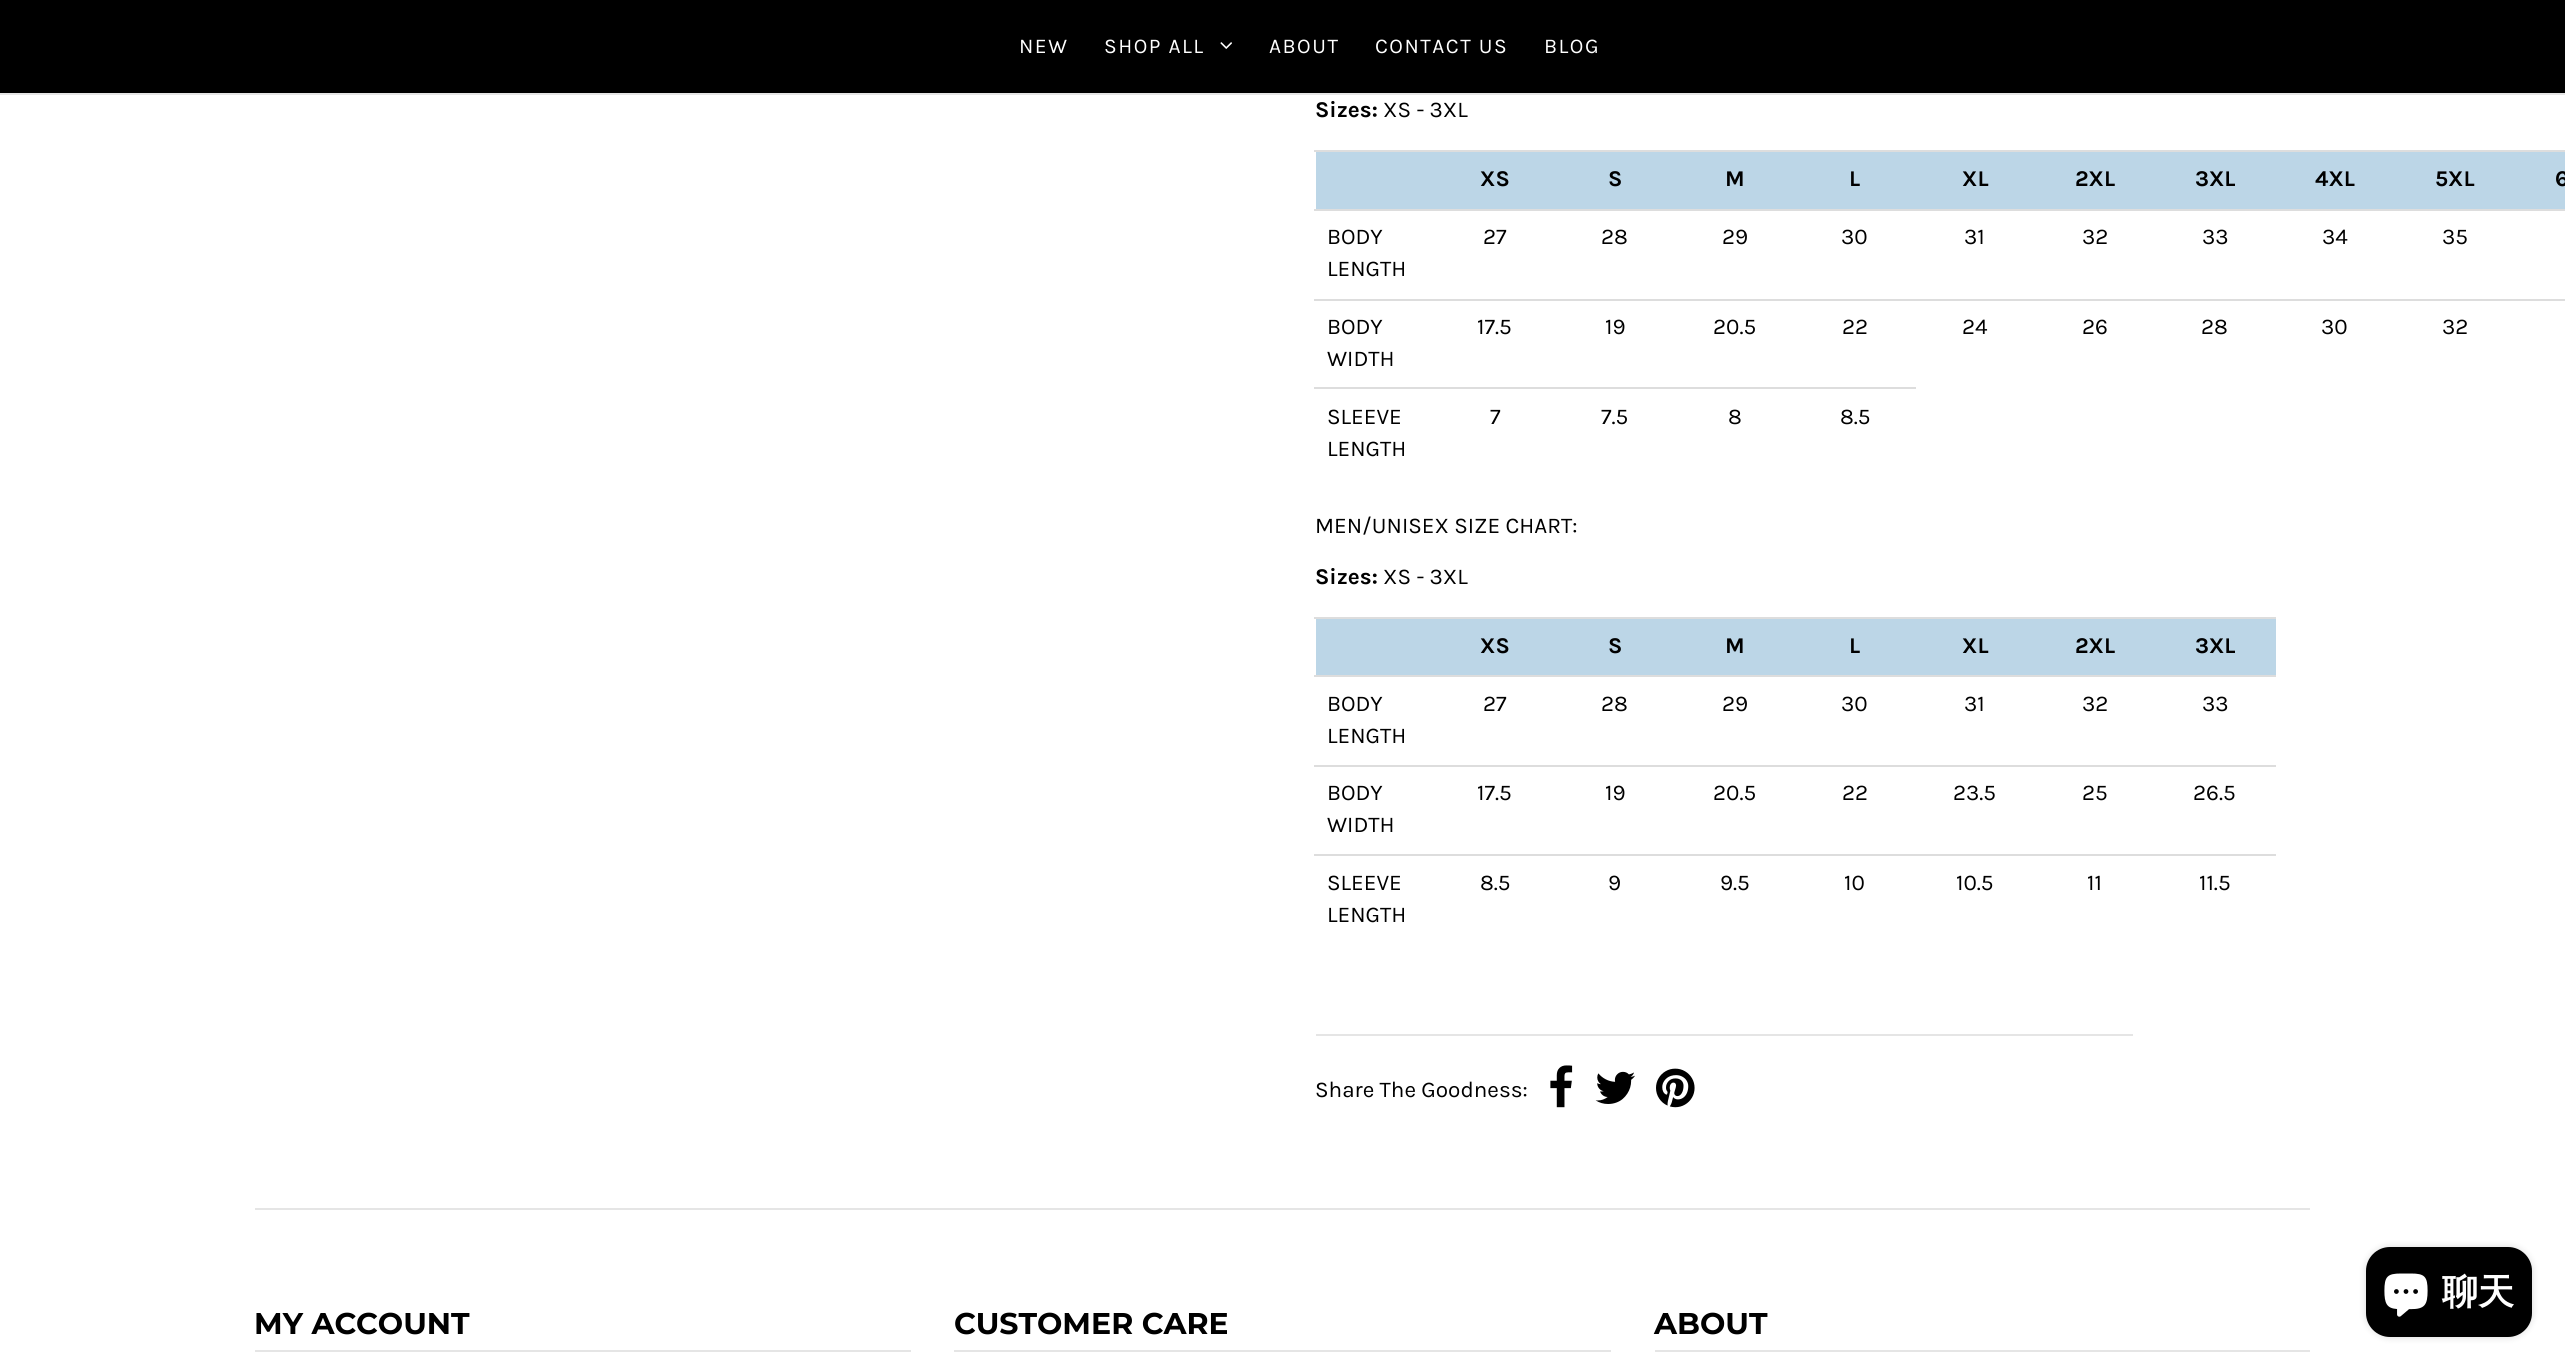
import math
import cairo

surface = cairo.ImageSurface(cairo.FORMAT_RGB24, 2565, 1367)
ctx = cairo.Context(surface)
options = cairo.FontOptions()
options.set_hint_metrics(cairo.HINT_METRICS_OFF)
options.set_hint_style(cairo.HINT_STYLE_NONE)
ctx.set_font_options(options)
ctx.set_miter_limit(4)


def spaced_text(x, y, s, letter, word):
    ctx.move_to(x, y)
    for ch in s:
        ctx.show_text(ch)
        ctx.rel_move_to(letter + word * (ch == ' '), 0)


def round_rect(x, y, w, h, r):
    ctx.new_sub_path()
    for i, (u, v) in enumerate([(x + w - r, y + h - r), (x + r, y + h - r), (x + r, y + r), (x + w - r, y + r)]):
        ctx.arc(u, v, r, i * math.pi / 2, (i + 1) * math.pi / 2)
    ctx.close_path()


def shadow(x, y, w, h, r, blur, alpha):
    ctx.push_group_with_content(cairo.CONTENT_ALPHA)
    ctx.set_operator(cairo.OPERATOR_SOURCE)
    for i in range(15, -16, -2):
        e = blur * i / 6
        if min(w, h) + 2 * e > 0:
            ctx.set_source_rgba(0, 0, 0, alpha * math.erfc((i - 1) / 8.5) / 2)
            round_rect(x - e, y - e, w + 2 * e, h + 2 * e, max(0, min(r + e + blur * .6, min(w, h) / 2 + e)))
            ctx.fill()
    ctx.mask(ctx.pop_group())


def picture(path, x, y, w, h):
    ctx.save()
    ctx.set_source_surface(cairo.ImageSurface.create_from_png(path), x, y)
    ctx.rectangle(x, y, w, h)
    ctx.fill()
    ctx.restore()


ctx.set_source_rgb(1, 1, 1)
ctx.paint()
ctx.set_source_rgb(0, 0, 0)
ctx.rectangle(0, 0, 2565, 93)
ctx.fill()
ctx.set_source_rgb(0.898, 0.898, 0.898)
ctx.rectangle(0, 93, 2565, 2)
ctx.fill()
ctx.select_font_face("Karla")
ctx.set_font_size(21)
ctx.set_source_rgb(1, 1, 1)
spaced_text(1019, 53, "NEW", 1.5, 0)
spaced_text(1104, 53, "SHOP ALL", 1.5, 0)
picture("img1.png", 1220, 42, 12, 7)
spaced_text(1269, 53, "ABOUT", 1.5, 0)
spaced_text(1375, 53, "CONTACT US", 1.5, 0)
spaced_text(1544, 53, "BLOG", 1.5, 0)
ctx.select_font_face("Karla", cairo.FONT_SLANT_NORMAL, cairo.FONT_WEIGHT_BOLD)
ctx.set_font_size(22.5)
ctx.set_source_rgb(0, 0, 0)
ctx.move_to(1315, 117)
ctx.show_text("Sizes:")
ctx.select_font_face("Karla")
ctx.move_to(1383, 117)
ctx.show_text("XS - 3XL")
ctx.set_source_rgb(0.737, 0.839, 0.906)
ctx.rectangle(1316, 152, 1249, 57)
ctx.fill()
ctx.select_font_face("Karla", cairo.FONT_SLANT_NORMAL, cairo.FONT_WEIGHT_BOLD)
ctx.set_source_rgb(0, 0, 0)
ctx.move_to(1480, 186)
ctx.show_text("XS")
ctx.move_to(1608, 186)
ctx.show_text("S")
ctx.move_to(1725, 186)
ctx.show_text("M")
ctx.move_to(1849, 186)
ctx.show_text("L")
ctx.move_to(1962, 186)
ctx.show_text("XL")
ctx.move_to(2075, 186)
ctx.show_text("2XL")
ctx.move_to(2195, 186)
ctx.show_text("3XL")
ctx.move_to(2315, 186)
ctx.show_text("4XL")
ctx.move_to(2435, 186)
ctx.show_text("5XL")
ctx.set_source_rgb(0.867, 0.867, 0.867)
ctx.rectangle(1314, 150, 1251, 2)
ctx.fill()
ctx.set_source_rgb(0, 0, 0)
ctx.move_to(2555, 186)
ctx.show_text("6")
ctx.set_source_rgb(0.867, 0.867, 0.867)
ctx.rectangle(1314, 209, 1251, 2)
ctx.fill()
ctx.select_font_face("Karla")
ctx.set_source_rgb(0, 0, 0)
ctx.move_to(1327, 244)
ctx.show_text("BODY")
ctx.move_to(1327, 276)
ctx.show_text("LENGTH")
ctx.move_to(1483, 244)
ctx.show_text("27")
ctx.move_to(1601, 244)
ctx.show_text("28")
ctx.move_to(1722, 244)
ctx.show_text("29")
ctx.move_to(1841, 244)
ctx.show_text("30")
ctx.move_to(1964, 244)
ctx.show_text("31")
ctx.move_to(2082, 244)
ctx.show_text("32")
ctx.move_to(2202, 244)
ctx.show_text("33")
ctx.move_to(2322, 244)
ctx.show_text("34")
ctx.move_to(2442, 244)
ctx.show_text("35")
ctx.set_source_rgb(0.867, 0.867, 0.867)
ctx.rectangle(1314, 299, 1251, 2)
ctx.fill()
ctx.set_source_rgb(0, 0, 0)
ctx.move_to(1327, 334)
ctx.show_text("BODY")
ctx.move_to(1327, 366)
ctx.show_text("WIDTH")
ctx.move_to(1477, 334)
ctx.show_text("17.5")
ctx.move_to(1605, 334)
ctx.show_text("19")
ctx.move_to(1713, 334)
ctx.show_text("20.5")
ctx.move_to(1842, 334)
ctx.show_text("22")
ctx.move_to(1962, 334)
ctx.show_text("24")
ctx.move_to(2082, 334)
ctx.show_text("26")
ctx.move_to(2201, 334)
ctx.show_text("28")
ctx.move_to(2321, 334)
ctx.show_text("30")
ctx.move_to(2442, 334)
ctx.show_text("32")
ctx.move_to(1327, 424)
ctx.show_text("SLEEVE")
ctx.move_to(1327, 456)
ctx.show_text("LENGTH")
ctx.move_to(1490, 424)
ctx.show_text("7")
ctx.move_to(1601, 424)
ctx.show_text("7.5")
ctx.move_to(1728, 424)
ctx.show_text("8")
ctx.set_source_rgb(0.867, 0.867, 0.867)
ctx.rectangle(1314, 387, 602, 2)
ctx.fill()
ctx.set_source_rgb(0, 0, 0)
ctx.move_to(1840, 424)
ctx.show_text("8.5")
ctx.move_to(1315, 533)
ctx.show_text("MEN/UNISEX SIZE CHART:")
ctx.select_font_face("Karla", cairo.FONT_SLANT_NORMAL, cairo.FONT_WEIGHT_BOLD)
ctx.move_to(1315, 584)
ctx.show_text("Sizes:")
ctx.select_font_face("Karla")
ctx.move_to(1383, 584)
ctx.show_text("XS - 3XL")
ctx.set_source_rgb(0.737, 0.839, 0.906)
ctx.rectangle(1316, 619, 960, 56)
ctx.fill()
ctx.select_font_face("Karla", cairo.FONT_SLANT_NORMAL, cairo.FONT_WEIGHT_BOLD)
ctx.set_source_rgb(0, 0, 0)
ctx.move_to(1480, 653)
ctx.show_text("XS")
ctx.move_to(1608, 653)
ctx.show_text("S")
ctx.move_to(1725, 653)
ctx.show_text("M")
ctx.move_to(1849, 653)
ctx.show_text("L")
ctx.move_to(1962, 653)
ctx.show_text("XL")
ctx.move_to(2075, 653)
ctx.show_text("2XL")
ctx.set_source_rgb(0.867, 0.867, 0.867)
ctx.rectangle(1314, 617, 962, 2)
ctx.fill()
ctx.set_source_rgb(0, 0, 0)
ctx.move_to(2195, 653)
ctx.show_text("3XL")
ctx.select_font_face("Karla")
ctx.move_to(1327, 711)
ctx.show_text("BODY")
ctx.move_to(1327, 743)
ctx.show_text("LENGTH")
ctx.move_to(1483, 711)
ctx.show_text("27")
ctx.move_to(1601, 711)
ctx.show_text("28")
ctx.move_to(1722, 711)
ctx.show_text("29")
ctx.move_to(1841, 711)
ctx.show_text("30")
ctx.move_to(1964, 711)
ctx.show_text("31")
ctx.move_to(2082, 711)
ctx.show_text("32")
ctx.set_source_rgb(0.867, 0.867, 0.867)
ctx.rectangle(1314, 675, 962, 2)
ctx.fill()
ctx.set_source_rgb(0, 0, 0)
ctx.move_to(2202, 711)
ctx.show_text("33")
ctx.move_to(1327, 800)
ctx.show_text("BODY")
ctx.move_to(1327, 832)
ctx.show_text("WIDTH")
ctx.move_to(1477, 800)
ctx.show_text("17.5")
ctx.move_to(1605, 800)
ctx.show_text("19")
ctx.move_to(1713, 800)
ctx.show_text("20.5")
ctx.move_to(1842, 800)
ctx.show_text("22")
ctx.move_to(1953, 800)
ctx.show_text("23.5")
ctx.move_to(2082, 800)
ctx.show_text("25")
ctx.set_source_rgb(0.867, 0.867, 0.867)
ctx.rectangle(1314, 765, 962, 2)
ctx.fill()
ctx.set_source_rgb(0, 0, 0)
ctx.move_to(2193, 800)
ctx.show_text("26.5")
ctx.move_to(1327, 890)
ctx.show_text("SLEEVE")
ctx.move_to(1327, 922)
ctx.show_text("LENGTH")
ctx.move_to(1480, 890)
ctx.show_text("8.5")
ctx.move_to(1608, 890)
ctx.show_text("9")
ctx.move_to(1720, 890)
ctx.show_text("9.5")
ctx.move_to(1844, 890)
ctx.show_text("10")
ctx.move_to(1956, 890)
ctx.show_text("10.5")
ctx.move_to(2087, 890)
ctx.show_text("11")
ctx.set_source_rgb(0.867, 0.867, 0.867)
ctx.rectangle(1314, 854, 962, 2)
ctx.fill()
ctx.set_source_rgb(0, 0, 0)
ctx.move_to(2199, 890)
ctx.show_text("11.5")
ctx.set_source_rgb(0.898, 0.898, 0.898)
ctx.rectangle(1316, 1034, 817, 2)
ctx.fill()
ctx.set_source_rgb(0, 0, 0)
ctx.move_to(1315, 1097)
ctx.show_text("Share The Goodness:")
picture("img2.png", 1550, 1065, 23, 43)
picture("img3.png", 1595, 1071, 40, 33)
picture("img4.png", 1656, 1068, 39, 40)
ctx.set_source_rgb(0.898, 0.898, 0.898)
ctx.rectangle(255, 1208, 2055, 2)
ctx.fill()
ctx.rectangle(255, 1350, 656, 2)
ctx.fill()
ctx.select_font_face("Montserrat", cairo.FONT_SLANT_NORMAL, cairo.FONT_WEIGHT_BOLD)
ctx.set_font_size(30)
ctx.set_source_rgb(0, 0, 0)
ctx.move_to(254, 1334)
ctx.show_text("MY ACCOUNT")
ctx.set_source_rgb(0.898, 0.898, 0.898)
ctx.rectangle(954, 1350, 657, 2)
ctx.fill()
ctx.set_source_rgb(0, 0, 0)
ctx.move_to(954, 1334)
ctx.show_text("CUSTOMER CARE")
ctx.set_source_rgb(0.898, 0.898, 0.898)
ctx.rectangle(1655, 1350, 655, 2)
ctx.fill()
ctx.set_source_rgb(0, 0, 0)
ctx.move_to(1654, 1334)
ctx.show_text("ABOUT")
ctx.set_source_rgb(0, 0, 0)
shadow(2366, 1247, 166, 90, 24, 4, 0.15)
ctx.set_source_rgb(0, 0, 0)
round_rect(2366, 1247, 166, 90, 24)
ctx.fill()
picture("img5.png", 2384, 1273, 44, 44)
ctx.select_font_face("WenQuanYi Zen Hei", cairo.FONT_SLANT_NORMAL, cairo.FONT_WEIGHT_BOLD)
ctx.set_font_size(36)
ctx.set_source_rgb(1, 1, 1)
ctx.move_to(2442, 1304)
ctx.show_text("聊天")
surface.write_to_png("page.png")
